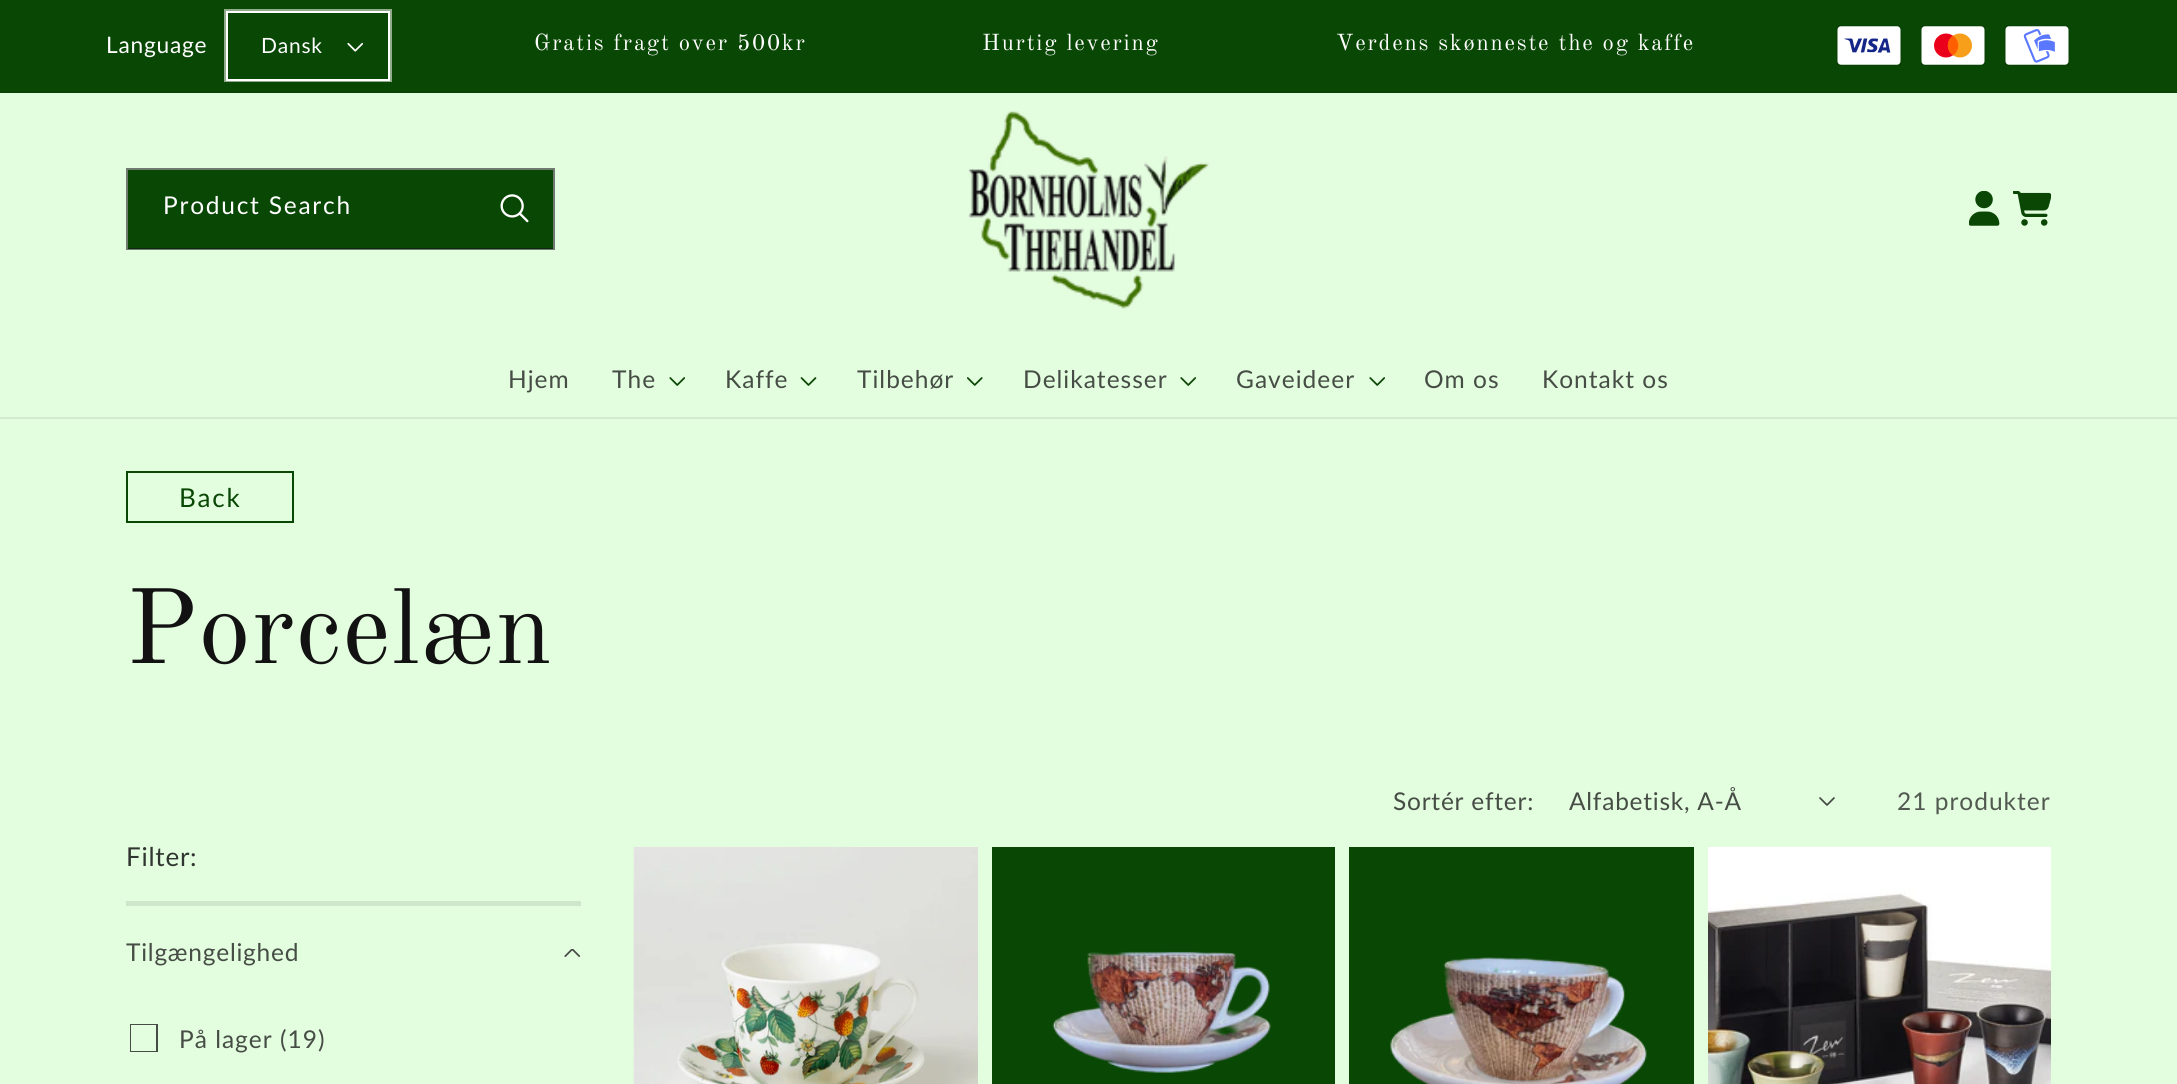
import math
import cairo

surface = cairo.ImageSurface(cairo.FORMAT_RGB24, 2177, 1084)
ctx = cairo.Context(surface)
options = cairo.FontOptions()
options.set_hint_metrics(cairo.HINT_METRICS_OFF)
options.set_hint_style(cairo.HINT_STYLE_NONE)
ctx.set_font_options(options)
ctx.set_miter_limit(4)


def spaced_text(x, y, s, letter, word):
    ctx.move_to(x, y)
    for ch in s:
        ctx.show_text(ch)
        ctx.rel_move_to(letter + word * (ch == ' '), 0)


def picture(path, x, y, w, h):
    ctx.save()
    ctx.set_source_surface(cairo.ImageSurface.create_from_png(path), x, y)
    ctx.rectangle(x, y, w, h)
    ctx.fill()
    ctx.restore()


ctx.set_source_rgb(0.89, 0.992, 0.875)
ctx.paint()
ctx.set_source_rgb(0.039, 0.278, 0.016)
ctx.rectangle(0, 0, 2177, 91)
ctx.fill()
ctx.set_source_rgb(0.043, 0.263, 0.02)
ctx.rectangle(0, 91, 2177, 2)
ctx.fill()
ctx.select_font_face("Lato")
ctx.set_font_size(22.75)
ctx.set_source_rgb(1, 1, 1)
spaced_text(106, 53, "Language", 0.75, 0)
picture("img1.png", 347, 42, 17, 10)
ctx.rectangle(225, 10, 166, 71)
ctx.set_source_rgb(0.569, 0.671, 0.549)
ctx.stroke()
ctx.rectangle(227, 12, 162, 68)
ctx.set_source_rgb(1, 1, 1)
ctx.stroke()
ctx.set_font_size(21)
spaced_text(261, 53, "Dansk", 0.75, 0)
ctx.select_font_face("Old Standard TT")
ctx.set_font_size(22.75)
spaced_text(534, 50, "Gratis fragt over 500kr", 1.75, 0)
spaced_text(982, 50, "Hurtig levering", 1.75, 0)
spaced_text(1336, 50, "Verdens skønneste the og kaffe", 1.75, 0)
picture("img2.png", 1836, 25, 66, 41)
picture("img3.png", 1920, 25, 66, 41)
picture("img4.png", 2004, 25, 66, 41)
ctx.set_source_rgb(0.824, 0.918, 0.812)
ctx.rectangle(0, 417, 2177, 2)
ctx.fill()
ctx.set_source_rgb(0.039, 0.278, 0.016)
ctx.rectangle(128, 170, 425, 79)
ctx.fill()
picture("img5.png", 500, 194, 29, 29)
ctx.rectangle(127, 169, 427, 80)
ctx.set_source_rgba(0.071, 0.071, 0.071, 0.55)
ctx.stroke()
ctx.select_font_face("Lato")
ctx.set_font_size(24.5)
ctx.set_source_rgb(1, 1, 1)
spaced_text(163, 214, "Product Search", 1.75, 0)
picture("img6.png", 968, 111, 242, 198)
picture("img7.png", 1969, 191, 31, 35)
picture("img8.png", 2013, 191, 38, 35)
ctx.set_source_rgb(0.275, 0.302, 0.271)
spaced_text(508, 388, "Hjem", 1, 0)
spaced_text(612, 388, "The", 1, 0)
picture("img9.png", 669, 377, 16, 9)
spaced_text(725, 388, "Kaffe", 1, 0)
picture("img10.png", 800, 377, 17, 9)
spaced_text(857, 388, "Tilbehør", 1, 0)
picture("img11.png", 967, 377, 16, 9)
spaced_text(1023, 388, "Delikatesser", 1, 0)
picture("img9.png", 1180, 377, 16, 9)
spaced_text(1236, 388, "Gaveideer", 1, 0)
picture("img9.png", 1369, 377, 16, 9)
spaced_text(1424, 388, "Om os", 1, 0)
spaced_text(1542, 388, "Kontakt os", 1, 0)
ctx.rectangle(127, 472, 166, 50)
ctx.set_source_rgb(0.039, 0.278, 0.016)
ctx.stroke()
ctx.set_font_size(26)
spaced_text(179, 507, "Back", 1.75, 0)
ctx.select_font_face("Old Standard TT")
ctx.set_font_size(105)
ctx.set_source_rgb(0.071, 0.071, 0.071)
spaced_text(126, 663, "Porcelæn", 1, 0)
ctx.select_font_face("Lato")
ctx.set_font_size(24.5)
ctx.set_source_rgb(0.275, 0.302, 0.271)
spaced_text(1393, 810, "Sortér efter:", 0.75, 0)
spaced_text(1569, 810, "Alfabetisk, A-Å", 0.75, 0)
picture("img12.png", 1819, 797, 16, 9)
ctx.set_source_rgb(0.318, 0.349, 0.314)
spaced_text(1897, 810, "21 produkter", 1, 0)
ctx.set_font_size(26)
ctx.set_source_rgb(0.192, 0.208, 0.192)
spaced_text(126, 866, "Filter:", 0.75, 0)
ctx.set_source_rgb(0.808, 0.902, 0.796)
ctx.rectangle(126, 901, 455, 5)
ctx.fill()
ctx.set_font_size(24.5)
ctx.set_source_rgb(0.275, 0.302, 0.271)
spaced_text(126, 961, "Tilgængelighed", 0.75, 0)
picture("img13.png", 564, 949, 17, 8)
ctx.save()
ctx.rectangle(130, 1024, 28, 28)
ctx.clip()
ctx.rectangle(130, 1024, 27, 28)
ctx.stroke()
ctx.restore()
spaced_text(179, 1048, "På lager (19)", 1, 0)
picture("img14.png", 633, 847, 345, 237)
ctx.set_source_rgb(0.039, 0.278, 0.016)
ctx.rectangle(992, 847, 343, 237)
ctx.fill()
picture("img15.png", 1052, 951, 219, 122)
ctx.rectangle(1349, 847, 345, 237)
ctx.fill()
picture("img16.png", 1390, 957, 257, 127)
picture("img17.png", 1708, 847, 343, 237)
surface.write_to_png("page.png")
